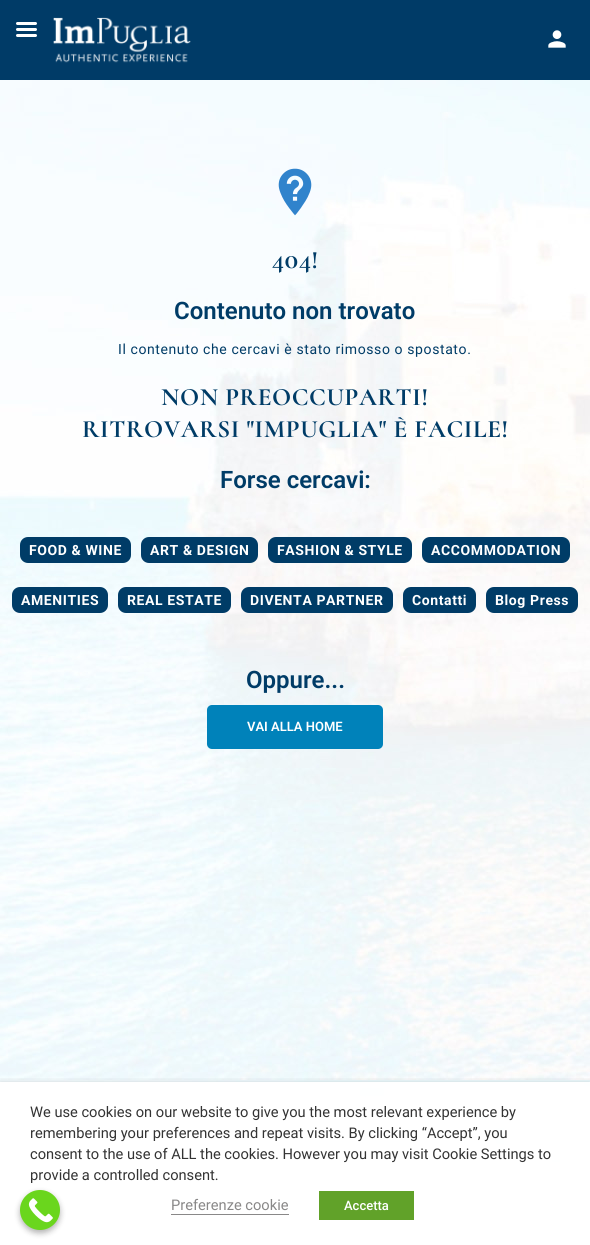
import math
import cairo

surface = cairo.ImageSurface(cairo.FORMAT_RGB24, 590, 1245)
ctx = cairo.Context(surface)
options = cairo.FontOptions()
options.set_hint_metrics(cairo.HINT_METRICS_OFF)
options.set_hint_style(cairo.HINT_STYLE_NONE)
ctx.set_font_options(options)
ctx.set_miter_limit(4)


def spaced_text(x, y, s, letter, word):
    ctx.move_to(x, y)
    for ch in s:
        ctx.show_text(ch)
        ctx.rel_move_to(letter + word * (ch == ' '), 0)


def round_rect(x, y, w, h, r):
    ctx.new_sub_path()
    for i, (u, v) in enumerate([(x + w - r, y + h - r), (x + r, y + h - r), (x + r, y + r), (x + w - r, y + r)]):
        ctx.arc(u, v, r, i * math.pi / 2, (i + 1) * math.pi / 2)
    ctx.close_path()


def shadow(x, y, w, h, r, blur, alpha):
    ctx.push_group_with_content(cairo.CONTENT_ALPHA)
    ctx.set_operator(cairo.OPERATOR_SOURCE)
    for i in range(15, -16, -2):
        e = blur * i / 6
        if min(w, h) + 2 * e > 0:
            ctx.set_source_rgba(0, 0, 0, alpha * math.erfc((i - 1) / 8.5) / 2)
            round_rect(x - e, y - e, w + 2 * e, h + 2 * e, max(0, min(r + e + blur * .6, min(w, h) / 2 + e)))
            ctx.fill()
    ctx.mask(ctx.pop_group())


def picture(path, x, y, w, h):
    ctx.save()
    ctx.set_source_surface(cairo.ImageSurface.create_from_png(path), x, y)
    ctx.rectangle(x, y, w, h)
    ctx.fill()
    ctx.restore()


ctx.set_source_rgb(1, 1, 1)
ctx.paint()
ctx.set_source_rgb(0, 0.231, 0.404)
ctx.rectangle(0, 0, 590, 80)
ctx.fill()
picture("img1.png", 16, 22, 21, 15)
picture("img2.png", 0, 80, 590, 1165)
picture("img3.png", 53, 17, 138, 46)
picture("img4.png", 548, 30, 18, 18)
picture("img5.png", 278, 168, 34, 48)
ctx.select_font_face("Cormorant Unicase", cairo.FONT_SLANT_NORMAL, cairo.FONT_WEIGHT_BOLD)
ctx.set_font_size(25)
ctx.set_source_rgb(0, 0.235, 0.404)
spaced_text(272, 268, "404!", 0.6, 0)
ctx.select_font_face("Roboto SemiBold")
ctx.set_font_size(24)
ctx.move_to(174, 319)
ctx.show_text("Contenuto non trovato")
ctx.select_font_face("Roboto")
ctx.set_font_size(14)
spaced_text(118, 354, "Il contenuto che cercavi è stato rimosso o spostato.", 0.6, 0)
ctx.select_font_face("Cormorant Unicase", cairo.FONT_SLANT_NORMAL, cairo.FONT_WEIGHT_BOLD)
ctx.set_font_size(25)
spaced_text(161, 405, "NON PREOCCUPARTI!", 0.6, 0)
spaced_text(82, 437, "RITROVARSI \"IMPUGLIA\" È FACILE!", 0.6, 0)
ctx.select_font_face("Roboto SemiBold")
ctx.set_font_size(24)
ctx.move_to(220, 488)
ctx.show_text("Forse cercavi:")
round_rect(20, 537, 111, 26, 8)
ctx.fill()
ctx.select_font_face("Roboto", cairo.FONT_SLANT_NORMAL, cairo.FONT_WEIGHT_BOLD)
ctx.set_font_size(14)
ctx.set_source_rgb(1, 1, 1)
spaced_text(29, 555, "FOOD & WINE", 0.6, 0)
ctx.set_source_rgb(0, 0.235, 0.404)
round_rect(141, 537, 117, 26, 8)
ctx.fill()
ctx.set_source_rgb(1, 1, 1)
spaced_text(150, 555, "ART & DESIGN", 0.6, 0)
ctx.set_source_rgb(0, 0.235, 0.404)
round_rect(268, 537, 144, 26, 8)
ctx.fill()
ctx.set_source_rgb(1, 1, 1)
spaced_text(277, 555, "FASHION & STYLE", 0.6, 0)
ctx.set_source_rgb(0, 0.235, 0.404)
round_rect(422, 537, 148, 26, 8)
ctx.fill()
ctx.set_source_rgb(1, 1, 1)
spaced_text(431, 555, "ACCOMMODATION", 0.6, 0)
ctx.set_source_rgb(0, 0.235, 0.404)
round_rect(12, 587, 96, 26, 8)
ctx.fill()
ctx.set_source_rgb(1, 1, 1)
spaced_text(21, 605, "AMENITIES", 0.6, 0)
ctx.set_source_rgb(0, 0.235, 0.404)
round_rect(118, 587, 113, 26, 8)
ctx.fill()
ctx.set_source_rgb(1, 1, 1)
spaced_text(127, 605, "REAL ESTATE", 0.6, 0)
ctx.set_source_rgb(0, 0.235, 0.404)
round_rect(241, 587, 152, 26, 8)
ctx.fill()
ctx.set_source_rgb(1, 1, 1)
spaced_text(250, 605, "DIVENTA PARTNER", 0.6, 0)
ctx.set_source_rgb(0, 0.235, 0.404)
round_rect(403, 587, 73, 26, 8)
ctx.fill()
ctx.set_source_rgb(1, 1, 1)
spaced_text(412, 605, "Contatti", 0.6, 0)
ctx.set_source_rgb(0, 0.235, 0.404)
round_rect(486, 587, 92, 26, 8)
ctx.fill()
ctx.set_source_rgb(1, 1, 1)
spaced_text(495, 605, "Blog Press", 0.6, 0)
ctx.select_font_face("Roboto SemiBold")
ctx.set_font_size(24)
ctx.set_source_rgb(0, 0.235, 0.404)
ctx.move_to(246, 688)
ctx.show_text("Oppure...")
ctx.set_source_rgb(0, 0.51, 0.729)
round_rect(207, 705, 176, 44, 5)
ctx.fill()
ctx.set_font_size(13)
ctx.set_source_rgb(1, 1, 1)
ctx.move_to(247, 731)
ctx.show_text("VAI ALLA HOME")
ctx.save()
ctx.rectangle(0, 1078, 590, 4)
ctx.clip()
ctx.set_source_rgb(0, 0, 0)
shadow(0, 1087, 590, 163, 0, 5, 0.5)
ctx.restore()
ctx.set_source_rgba(1, 1, 1, 0.97)
ctx.rectangle(0, 1082, 590, 163)
ctx.fill()
ctx.select_font_face("Roboto")
ctx.set_font_size(14.65)
ctx.set_source_rgb(0.2, 0.2, 0.2)
ctx.move_to(30, 1117)
ctx.show_text("We use cookies on our website to give you the most relevant experience by")
ctx.move_to(30, 1138)
ctx.show_text("remembering your preferences and repeat visits. By clicking “Accept”, you")
ctx.move_to(30, 1159)
ctx.show_text("consent to the use of ALL the cookies. However you may visit Cookie Settings to")
ctx.move_to(30, 1180)
ctx.show_text("provide a controlled consent.")
ctx.set_source_rgb(0.537, 0.533, 0.533)
ctx.move_to(171, 1210)
ctx.show_text("Preferenze cookie")
ctx.rectangle(171, 1214, 118, 1)
ctx.fill()
ctx.set_source_rgb(0.38, 0.635, 0.161)
ctx.rectangle(319, 1191, 95, 29)
ctx.fill()
ctx.select_font_face("Roboto Medium")
ctx.set_font_size(13)
ctx.set_source_rgb(1, 1, 1)
ctx.move_to(344, 1210)
ctx.show_text("Accetta")
ctx.set_source_rgb(0, 0, 0)
shadow(20, 1193, 40, 40, 20, 3, 0.3)
ctx.set_source_rgb(0.416, 0.839, 0.114)
ctx.arc(40, 1210, 20, 0, 2 * math.pi)
ctx.fill()
picture("img6.png", 28, 1198, 25, 25)
surface.write_to_png("page.png")
